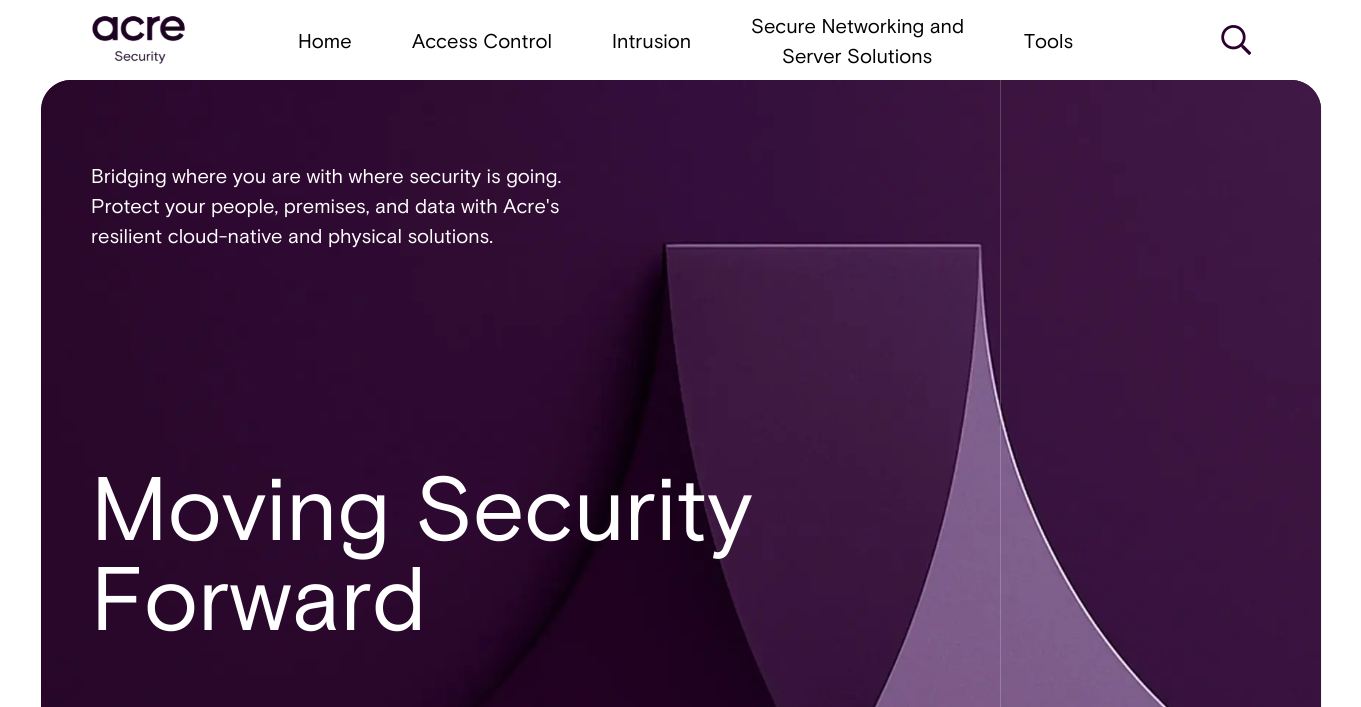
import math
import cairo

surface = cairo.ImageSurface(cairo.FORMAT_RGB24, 1361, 707)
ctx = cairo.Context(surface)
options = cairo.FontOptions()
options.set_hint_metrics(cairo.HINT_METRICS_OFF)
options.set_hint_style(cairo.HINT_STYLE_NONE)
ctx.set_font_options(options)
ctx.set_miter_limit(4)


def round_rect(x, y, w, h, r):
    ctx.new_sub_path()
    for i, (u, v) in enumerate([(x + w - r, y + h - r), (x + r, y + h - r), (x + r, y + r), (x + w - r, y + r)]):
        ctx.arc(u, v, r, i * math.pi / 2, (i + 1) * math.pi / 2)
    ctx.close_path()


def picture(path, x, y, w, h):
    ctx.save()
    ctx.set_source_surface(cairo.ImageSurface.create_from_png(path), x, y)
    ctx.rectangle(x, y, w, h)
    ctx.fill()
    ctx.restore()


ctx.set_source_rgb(1, 1, 1)
ctx.paint()
picture("img1.png", 92, 16, 93, 48)
ctx.select_font_face("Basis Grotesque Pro")
ctx.set_font_size(20)
ctx.set_source_rgb(0, 0, 0)
ctx.move_to(298, 48)
ctx.show_text("Home")
ctx.move_to(412, 48)
ctx.show_text("Access Control")
ctx.move_to(612, 48)
ctx.show_text("Intrusion")
ctx.move_to(751, 33)
ctx.show_text("Secure Networking and")
ctx.move_to(782, 63)
ctx.show_text("Server Solutions")
ctx.move_to(1024, 48)
ctx.show_text("Tools")
picture("img2.png", 1221, 25, 30, 30)
ctx.set_source_rgb(0.169, 0, 0.188)
round_rect(41, 80, 1280, 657, 30)
ctx.fill()
picture("img3.png", 41, 80, 1281, 627)
ctx.set_source_rgb(1, 1, 1)
ctx.move_to(91, 183)
ctx.show_text("Bridging where you are with where security is going.")
ctx.move_to(91, 213)
ctx.show_text("Protect your people, premises, and data with Acre's")
ctx.move_to(91, 243)
ctx.show_text("resilient cloud-native and physical solutions.")
ctx.set_font_size(90)
ctx.move_to(91, 540)
ctx.show_text("Moving Security")
ctx.move_to(91, 630)
ctx.show_text("Forward")
ctx.set_source_rgba(1, 1, 1, 0.2)
ctx.rectangle(1000, 80, 1, 627)
ctx.fill()
surface.write_to_png("page.png")
